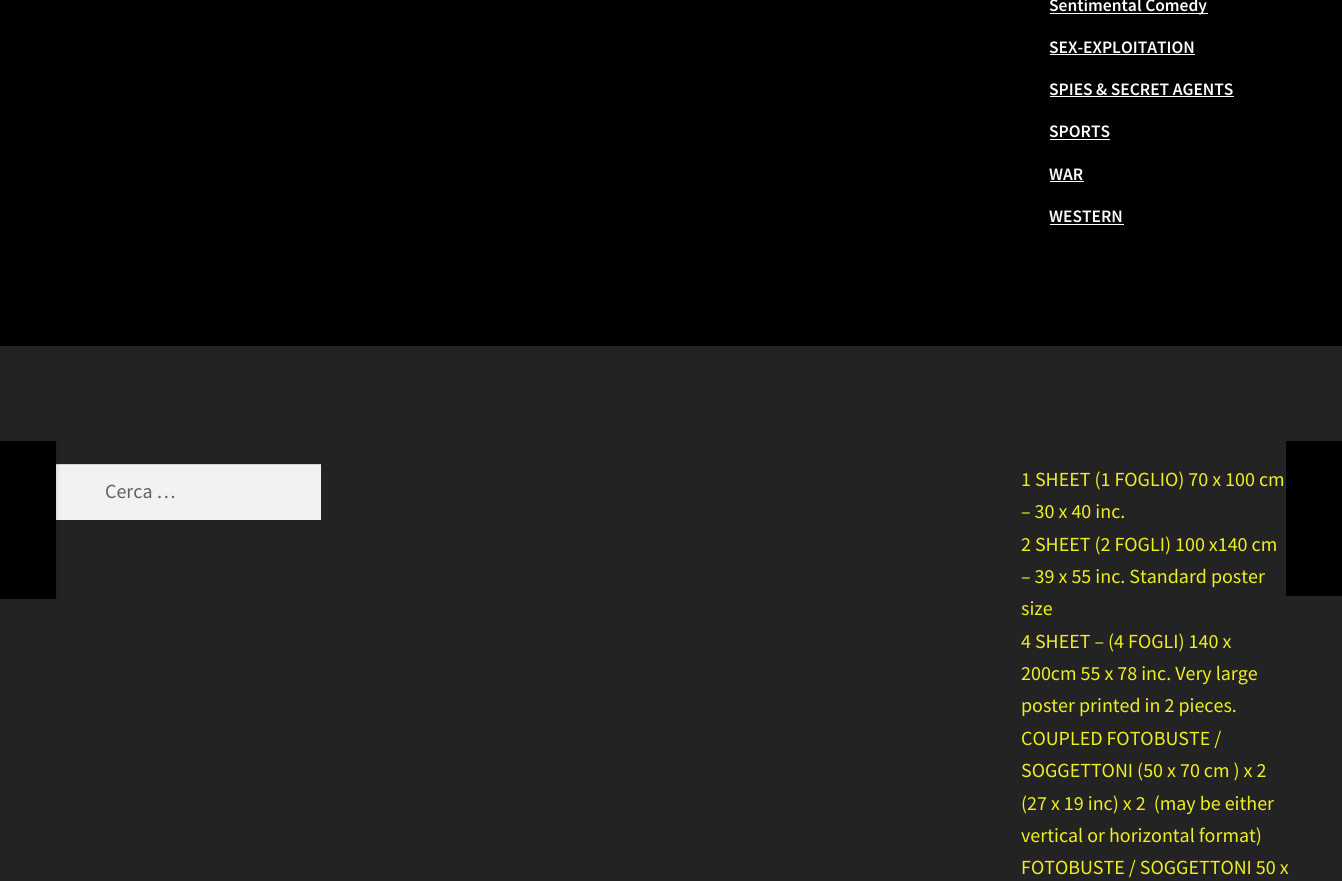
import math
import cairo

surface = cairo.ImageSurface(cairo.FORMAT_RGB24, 1342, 881)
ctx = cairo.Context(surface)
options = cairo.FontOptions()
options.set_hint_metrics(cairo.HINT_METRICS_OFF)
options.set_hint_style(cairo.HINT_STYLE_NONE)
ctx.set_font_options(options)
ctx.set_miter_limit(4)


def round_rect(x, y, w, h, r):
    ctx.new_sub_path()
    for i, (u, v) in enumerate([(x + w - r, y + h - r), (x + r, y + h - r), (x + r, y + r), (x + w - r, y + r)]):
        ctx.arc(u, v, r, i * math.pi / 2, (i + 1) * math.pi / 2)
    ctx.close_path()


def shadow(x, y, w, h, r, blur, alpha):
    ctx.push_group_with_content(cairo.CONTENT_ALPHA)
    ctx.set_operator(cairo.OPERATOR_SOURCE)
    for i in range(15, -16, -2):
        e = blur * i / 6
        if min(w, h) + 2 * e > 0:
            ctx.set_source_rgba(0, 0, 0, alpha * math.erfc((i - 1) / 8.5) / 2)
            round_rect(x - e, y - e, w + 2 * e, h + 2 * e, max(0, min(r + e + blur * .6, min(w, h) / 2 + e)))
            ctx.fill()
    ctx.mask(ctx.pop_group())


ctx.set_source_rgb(0, 0, 0)
ctx.paint()
ctx.set_source_rgb(1, 1, 1)
ctx.rectangle(1050, 13, 158, 1)
ctx.fill()
ctx.select_font_face("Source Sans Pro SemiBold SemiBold")
ctx.set_font_size(17.5)
ctx.move_to(1049, 11)
ctx.show_text("Sentimental Comedy")
ctx.move_to(1049, 53)
ctx.show_text("SEX-EXPLOITATION")
ctx.rectangle(1050, 54, 145, 1)
ctx.fill()
ctx.move_to(1049, 95)
ctx.show_text("SPIES & SECRET AGENTS")
ctx.rectangle(1050, 96, 184, 1)
ctx.fill()
ctx.move_to(1049, 137)
ctx.show_text("SPORTS")
ctx.rectangle(1050, 139, 60, 1)
ctx.fill()
ctx.move_to(1049, 180)
ctx.show_text("WAR")
ctx.rectangle(1050, 181, 34, 1)
ctx.fill()
ctx.move_to(1049, 222)
ctx.show_text("WESTERN")
ctx.rectangle(1050, 224, 74, 1)
ctx.fill()
ctx.set_source_rgb(0.137, 0.137, 0.137)
ctx.rectangle(0, 346, 1342, 535)
ctx.fill()
ctx.set_source_rgb(0.949, 0.949, 0.949)
ctx.rectangle(56, 465, 265, 55)
ctx.fill()
ctx.set_source_rgb(0.831, 0.831, 0.831)
ctx.rectangle(53, 464, 268, 1)
ctx.fill()
ctx.set_source_rgb(0, 0, 0)
shadow(-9, 441, 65, 158, 0, 3, 0.2)
ctx.set_source_rgb(0, 0, 0)
ctx.rectangle(0, 441, 56, 158)
ctx.fill()
ctx.rectangle(1286, 441, 56, 155)
ctx.fill()
ctx.select_font_face("Source Sans Pro")
ctx.set_font_size(20)
ctx.set_source_rgb(0.38, 0.38, 0.38)
ctx.move_to(105, 498)
ctx.show_text("Cerca …")
ctx.set_source_rgb(0.933, 0.933, 0.133)
ctx.move_to(1021, 486)
ctx.show_text("1 SHEET (1 FOGLIO) 70 x 100 cm")
ctx.move_to(1021, 518)
ctx.show_text("– 30 x 40 inc.")
ctx.move_to(1021, 551)
ctx.show_text("2 SHEET (2 FOGLI) 100 x140 cm")
ctx.move_to(1021, 583)
ctx.show_text("– 39 x 55 inc. Standard poster")
ctx.move_to(1021, 615)
ctx.show_text("size")
ctx.move_to(1021, 648)
ctx.show_text("4 SHEET – (4 FOGLI) 140 x")
ctx.move_to(1021, 680)
ctx.show_text("200cm 55 x 78 inc. Very large")
ctx.move_to(1021, 712)
ctx.show_text("poster printed in 2 pieces.")
ctx.move_to(1021, 745)
ctx.show_text("COUPLED FOTOBUSTE /")
ctx.move_to(1021, 777)
ctx.show_text("SOGGETTONI (50 x 70 cm ) x 2")
ctx.move_to(1021, 810)
ctx.show_text("(27 x 19 inc) x 2  (may be either")
ctx.move_to(1021, 842)
ctx.show_text("vertical or horizontal format)")
ctx.move_to(1021, 874)
ctx.show_text("FOTOBUSTE / SOGGETTONI 50 x")
surface.write_to_png("page.png")
